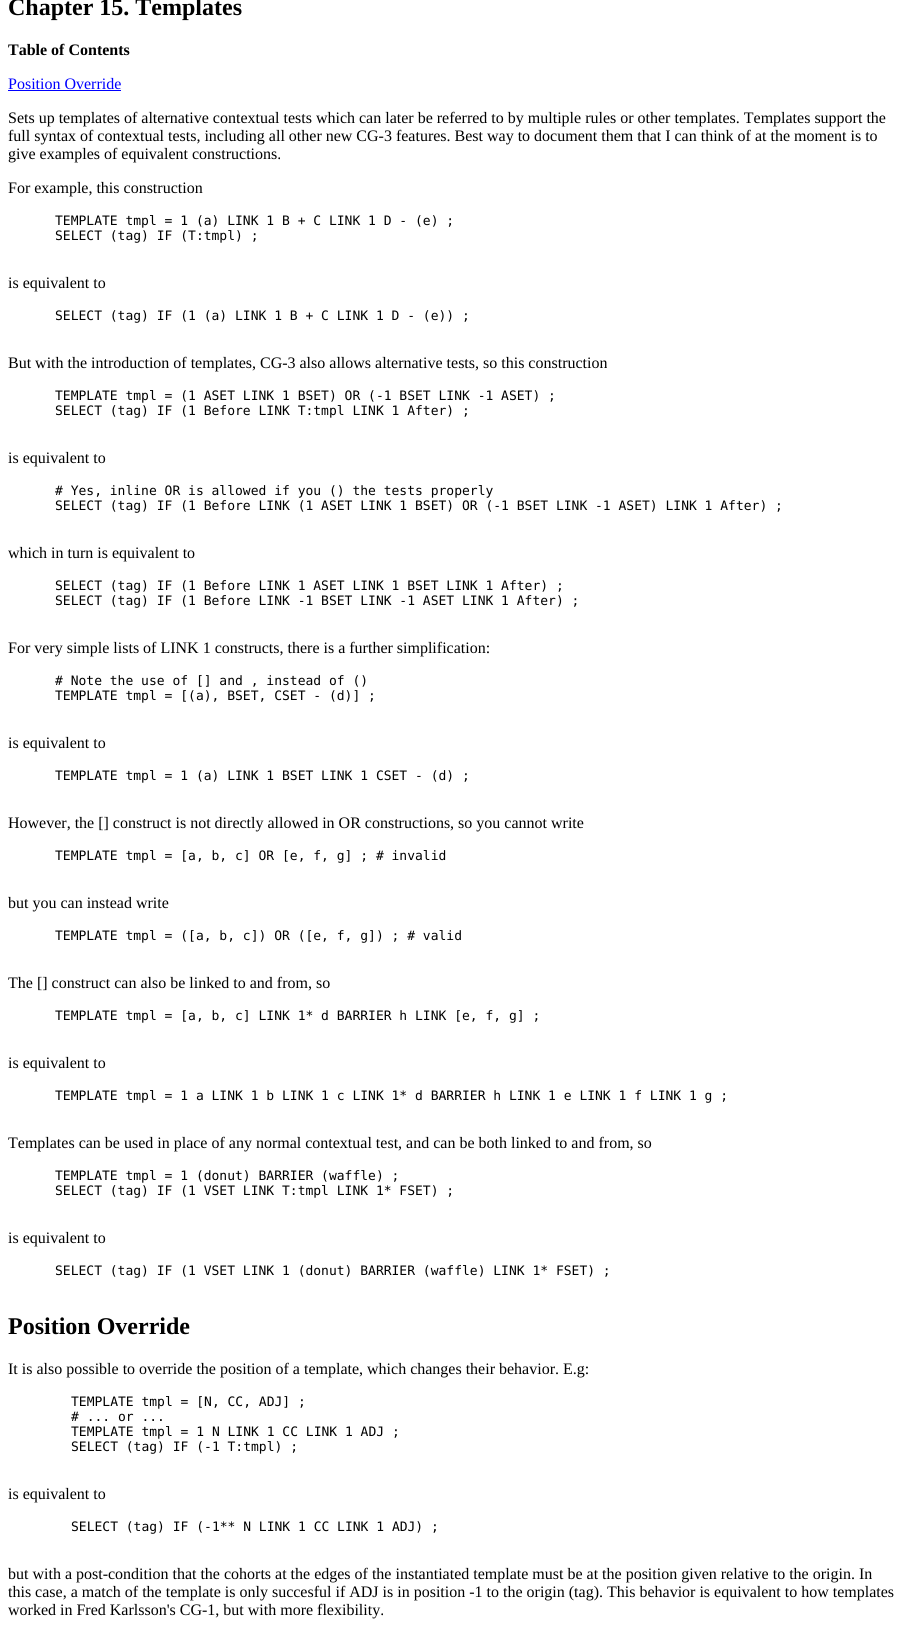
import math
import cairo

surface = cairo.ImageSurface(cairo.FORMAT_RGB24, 904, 1632)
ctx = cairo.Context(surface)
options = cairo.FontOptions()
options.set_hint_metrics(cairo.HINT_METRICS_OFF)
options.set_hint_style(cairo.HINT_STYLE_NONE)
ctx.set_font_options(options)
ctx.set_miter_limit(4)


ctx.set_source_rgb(1, 1, 1)
ctx.paint()
ctx.select_font_face("Liberation Serif", cairo.FONT_SLANT_NORMAL, cairo.FONT_WEIGHT_BOLD)
ctx.set_font_size(24)
ctx.set_source_rgb(0, 0, 0)
ctx.move_to(8, 15)
ctx.show_text("Chapter 15. Templates")
ctx.set_font_size(16)
ctx.move_to(8, 55)
ctx.show_text("Table of Contents")
ctx.select_font_face("Liberation Serif")
ctx.set_source_rgb(0, 0, 1)
ctx.move_to(8, 89)
ctx.show_text("Position Override")
ctx.rectangle(8, 90, 113, 1)
ctx.fill()
ctx.set_source_rgb(0, 0, 0)
ctx.move_to(8, 123)
ctx.show_text("Sets up templates of alternative contextual tests which can later be referred to by multiple rules or other templates. Templates support the")
ctx.move_to(8, 141)
ctx.show_text("full syntax of contextual tests, including all other new CG-3 features. Best way to document them that I can think of at the moment is to")
ctx.move_to(8, 159)
ctx.show_text("give examples of equivalent constructions.")
ctx.move_to(8, 193)
ctx.show_text("For example, this construction")
ctx.select_font_face("DejaVu Sans Mono")
ctx.set_font_size(13)
ctx.move_to(55, 225)
ctx.show_text("TEMPLATE tmpl = 1 (a) LINK 1 B + C LINK 1 D - (e) ;")
ctx.move_to(55, 240)
ctx.show_text("SELECT (tag) IF (T:tmpl) ;")
ctx.select_font_face("Liberation Serif")
ctx.set_font_size(16)
ctx.move_to(8, 288)
ctx.show_text("is equivalent to")
ctx.select_font_face("DejaVu Sans Mono")
ctx.set_font_size(13)
ctx.move_to(55, 320)
ctx.show_text("SELECT (tag) IF (1 (a) LINK 1 B + C LINK 1 D - (e)) ;")
ctx.select_font_face("Liberation Serif")
ctx.set_font_size(16)
ctx.move_to(8, 368)
ctx.show_text("But with the introduction of templates, CG-3 also allows alternative tests, so this construction")
ctx.select_font_face("DejaVu Sans Mono")
ctx.set_font_size(13)
ctx.move_to(55, 400)
ctx.show_text("TEMPLATE tmpl = (1 ASET LINK 1 BSET) OR (-1 BSET LINK -1 ASET) ;")
ctx.move_to(55, 415)
ctx.show_text("SELECT (tag) IF (1 Before LINK T:tmpl LINK 1 After) ;")
ctx.select_font_face("Liberation Serif")
ctx.set_font_size(16)
ctx.move_to(8, 463)
ctx.show_text("is equivalent to")
ctx.select_font_face("DejaVu Sans Mono")
ctx.set_font_size(13)
ctx.move_to(55, 495)
ctx.show_text("# Yes, inline OR is allowed if you () the tests properly")
ctx.move_to(55, 510)
ctx.show_text("SELECT (tag) IF (1 Before LINK (1 ASET LINK 1 BSET) OR (-1 BSET LINK -1 ASET) LINK 1 After) ;")
ctx.select_font_face("Liberation Serif")
ctx.set_font_size(16)
ctx.move_to(8, 558)
ctx.show_text("which in turn is equivalent to")
ctx.select_font_face("DejaVu Sans Mono")
ctx.set_font_size(13)
ctx.move_to(55, 590)
ctx.show_text("SELECT (tag) IF (1 Before LINK 1 ASET LINK 1 BSET LINK 1 After) ;")
ctx.move_to(55, 605)
ctx.show_text("SELECT (tag) IF (1 Before LINK -1 BSET LINK -1 ASET LINK 1 After) ;")
ctx.select_font_face("Liberation Serif")
ctx.set_font_size(16)
ctx.move_to(8, 653)
ctx.show_text("For very simple lists of LINK 1 constructs, there is a further simplification:")
ctx.select_font_face("DejaVu Sans Mono")
ctx.set_font_size(13)
ctx.move_to(55, 685)
ctx.show_text("# Note the use of [] and , instead of ()")
ctx.move_to(55, 700)
ctx.show_text("TEMPLATE tmpl = [(a), BSET, CSET - (d)] ;")
ctx.select_font_face("Liberation Serif")
ctx.set_font_size(16)
ctx.move_to(8, 748)
ctx.show_text("is equivalent to")
ctx.select_font_face("DejaVu Sans Mono")
ctx.set_font_size(13)
ctx.move_to(55, 780)
ctx.show_text("TEMPLATE tmpl = 1 (a) LINK 1 BSET LINK 1 CSET - (d) ;")
ctx.select_font_face("Liberation Serif")
ctx.set_font_size(16)
ctx.move_to(8, 828)
ctx.show_text("However, the [] construct is not directly allowed in OR constructions, so you cannot write")
ctx.select_font_face("DejaVu Sans Mono")
ctx.set_font_size(13)
ctx.move_to(55, 860)
ctx.show_text("TEMPLATE tmpl = [a, b, c] OR [e, f, g] ; # invalid")
ctx.select_font_face("Liberation Serif")
ctx.set_font_size(16)
ctx.move_to(8, 908)
ctx.show_text("but you can instead write")
ctx.select_font_face("DejaVu Sans Mono")
ctx.set_font_size(13)
ctx.move_to(55, 940)
ctx.show_text("TEMPLATE tmpl = ([a, b, c]) OR ([e, f, g]) ; # valid")
ctx.select_font_face("Liberation Serif")
ctx.set_font_size(16)
ctx.move_to(8, 988)
ctx.show_text("The [] construct can also be linked to and from, so")
ctx.select_font_face("DejaVu Sans Mono")
ctx.set_font_size(13)
ctx.move_to(55, 1020)
ctx.show_text("TEMPLATE tmpl = [a, b, c] LINK 1* d BARRIER h LINK [e, f, g] ;")
ctx.select_font_face("Liberation Serif")
ctx.set_font_size(16)
ctx.move_to(8, 1068)
ctx.show_text("is equivalent to")
ctx.select_font_face("DejaVu Sans Mono")
ctx.set_font_size(13)
ctx.move_to(55, 1100)
ctx.show_text("TEMPLATE tmpl = 1 a LINK 1 b LINK 1 c LINK 1* d BARRIER h LINK 1 e LINK 1 f LINK 1 g ;")
ctx.select_font_face("Liberation Serif")
ctx.set_font_size(16)
ctx.move_to(8, 1148)
ctx.show_text("Templates can be used in place of any normal contextual test, and can be both linked to and from, so")
ctx.select_font_face("DejaVu Sans Mono")
ctx.set_font_size(13)
ctx.move_to(55, 1180)
ctx.show_text("TEMPLATE tmpl = 1 (donut) BARRIER (waffle) ;")
ctx.move_to(55, 1195)
ctx.show_text("SELECT (tag) IF (1 VSET LINK T:tmpl LINK 1* FSET) ;")
ctx.select_font_face("Liberation Serif")
ctx.set_font_size(16)
ctx.move_to(8, 1243)
ctx.show_text("is equivalent to")
ctx.select_font_face("DejaVu Sans Mono")
ctx.set_font_size(13)
ctx.move_to(55, 1275)
ctx.show_text("SELECT (tag) IF (1 VSET LINK 1 (donut) BARRIER (waffle) LINK 1* FSET) ;")
ctx.select_font_face("Liberation Serif", cairo.FONT_SLANT_NORMAL, cairo.FONT_WEIGHT_BOLD)
ctx.set_font_size(24)
ctx.move_to(8, 1334)
ctx.show_text("Position Override")
ctx.select_font_face("Liberation Serif")
ctx.set_font_size(16)
ctx.move_to(8, 1374)
ctx.show_text("It is also possible to override the position of a template, which changes their behavior. E.g:")
ctx.select_font_face("DejaVu Sans Mono")
ctx.set_font_size(13)
ctx.move_to(71, 1406)
ctx.show_text("TEMPLATE tmpl = [N, CC, ADJ] ;")
ctx.move_to(71, 1421)
ctx.show_text("# ... or ...")
ctx.move_to(71, 1436)
ctx.show_text("TEMPLATE tmpl = 1 N LINK 1 CC LINK 1 ADJ ;")
ctx.move_to(71, 1451)
ctx.show_text("SELECT (tag) IF (-1 T:tmpl) ;")
ctx.select_font_face("Liberation Serif")
ctx.set_font_size(16)
ctx.move_to(8, 1499)
ctx.show_text("is equivalent to")
ctx.select_font_face("DejaVu Sans Mono")
ctx.set_font_size(13)
ctx.move_to(71, 1531)
ctx.show_text("SELECT (tag) IF (-1** N LINK 1 CC LINK 1 ADJ) ;")
ctx.select_font_face("Liberation Serif")
ctx.set_font_size(16)
ctx.move_to(8, 1579)
ctx.show_text("but with a post-condition that the cohorts at the edges of the instantiated template must be at the position given relative to the origin. In")
ctx.move_to(8, 1597)
ctx.show_text("this case, a match of the template is only succesful if ADJ is in position -1 to the origin (tag). This behavior is equivalent to how templates")
ctx.move_to(8, 1615)
ctx.show_text("worked in Fred Karlsson's CG-1, but with more flexibility.")
surface.write_to_png("page.png")
